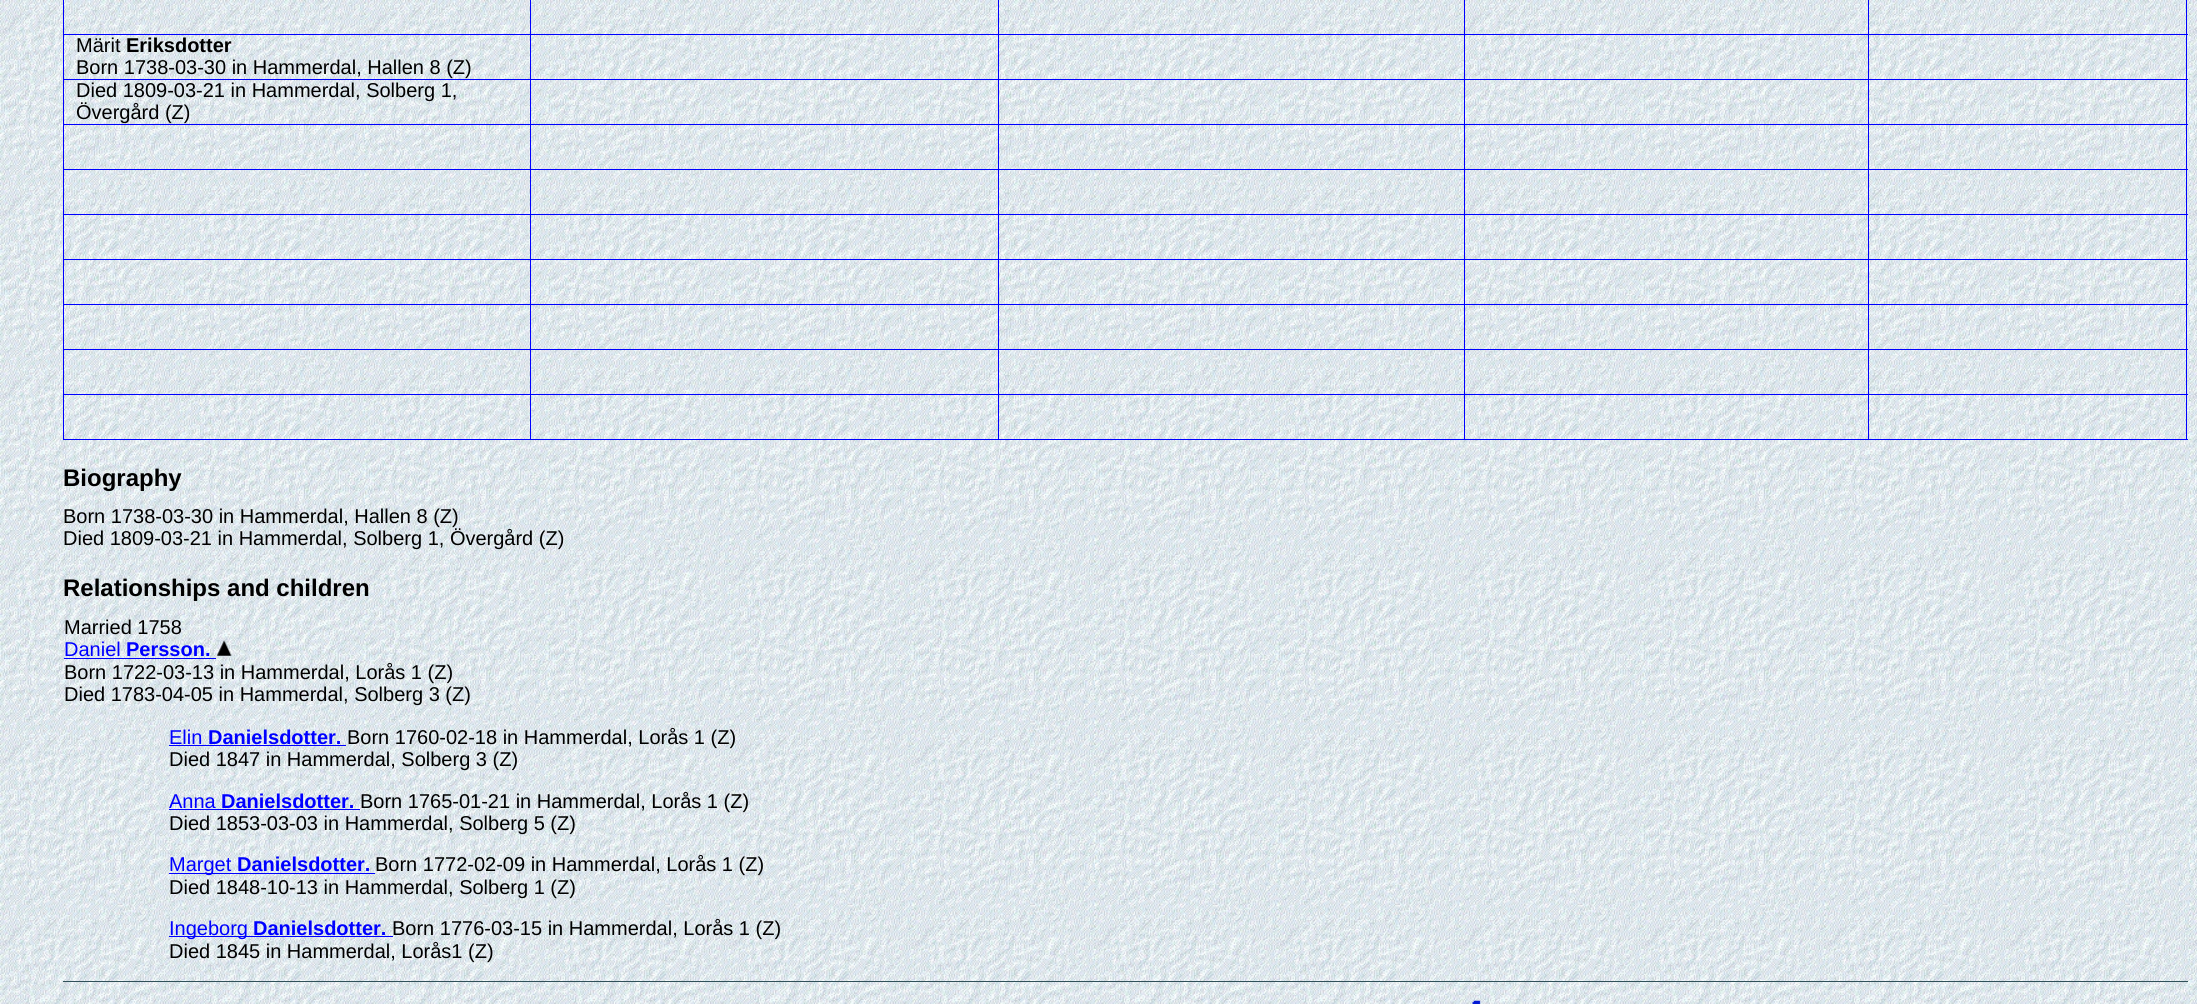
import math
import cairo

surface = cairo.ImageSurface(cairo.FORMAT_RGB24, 2197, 1004)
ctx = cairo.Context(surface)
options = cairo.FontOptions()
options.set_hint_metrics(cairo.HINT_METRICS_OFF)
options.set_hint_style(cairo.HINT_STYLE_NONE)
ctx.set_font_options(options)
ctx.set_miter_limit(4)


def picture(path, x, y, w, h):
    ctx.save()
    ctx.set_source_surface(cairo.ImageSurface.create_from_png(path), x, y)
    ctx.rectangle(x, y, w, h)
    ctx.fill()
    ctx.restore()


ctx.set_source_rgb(1, 1, 1)
ctx.paint()
picture("img1.png", 0, 0, 2197, 1004)
ctx.set_source_rgb(0, 0, 1)
ctx.rectangle(2186, 0, 1, 440)
ctx.fill()
ctx.rectangle(63, 439, 2125, 1)
ctx.fill()
ctx.rectangle(63, 0, 1, 440)
ctx.fill()
ctx.rectangle(63, 394, 2125, 1)
ctx.fill()
ctx.rectangle(63, 349, 2125, 1)
ctx.fill()
ctx.rectangle(63, 259, 2125, 1)
ctx.fill()
ctx.rectangle(63, 79, 2125, 1)
ctx.fill()
ctx.rectangle(63, 34, 2125, 1)
ctx.fill()
ctx.rectangle(63, 124, 2125, 1)
ctx.fill()
ctx.rectangle(63, 169, 2125, 1)
ctx.fill()
ctx.rectangle(63, 214, 2125, 1)
ctx.fill()
ctx.rectangle(63, 304, 2125, 1)
ctx.fill()
ctx.rectangle(1868, 0, 1, 440)
ctx.fill()
ctx.rectangle(1464, 0, 1, 440)
ctx.fill()
ctx.rectangle(998, 0, 1, 440)
ctx.fill()
ctx.rectangle(530, 0, 1, 440)
ctx.fill()
ctx.select_font_face("Liberation Sans")
ctx.set_font_size(20)
ctx.set_source_rgb(0, 0, 0)
ctx.move_to(76, 52)
ctx.show_text("Märit")
ctx.select_font_face("Liberation Sans", cairo.FONT_SLANT_NORMAL, cairo.FONT_WEIGHT_BOLD)
ctx.move_to(126, 52)
ctx.show_text("Eriksdotter")
ctx.select_font_face("Liberation Sans")
ctx.move_to(76, 74)
ctx.show_text("Born 1738-03-30 in Hammerdal, Hallen 8 (Z)")
ctx.move_to(76, 97)
ctx.show_text("Died 1809-03-21 in Hammerdal, Solberg 1,")
ctx.move_to(76, 119)
ctx.show_text("Övergård (Z)")
ctx.select_font_face("Liberation Sans", cairo.FONT_SLANT_NORMAL, cairo.FONT_WEIGHT_BOLD)
ctx.set_font_size(24)
ctx.move_to(63, 486)
ctx.show_text("Biography")
ctx.select_font_face("Liberation Sans")
ctx.set_font_size(20)
ctx.move_to(63, 523)
ctx.show_text("Born 1738-03-30 in Hammerdal, Hallen 8 (Z)")
ctx.move_to(63, 545)
ctx.show_text("Died 1809-03-21 in Hammerdal, Solberg 1, Övergård (Z)")
ctx.select_font_face("Liberation Sans", cairo.FONT_SLANT_NORMAL, cairo.FONT_WEIGHT_BOLD)
ctx.set_font_size(24)
ctx.move_to(63, 596)
ctx.show_text("Relationships and children")
ctx.select_font_face("Liberation Sans")
ctx.set_font_size(20)
ctx.move_to(64, 634)
ctx.show_text("Married 1758")
ctx.set_source_rgb(0, 0, 1)
ctx.move_to(64, 656)
ctx.show_text("Daniel")
ctx.select_font_face("Liberation Sans", cairo.FONT_SLANT_NORMAL, cairo.FONT_WEIGHT_BOLD)
ctx.move_to(126, 656)
ctx.show_text("Persson.")
ctx.rectangle(64, 658, 152, 1)
ctx.fill()
picture("img2.png", 217, 640, 15, 16)
ctx.select_font_face("Liberation Sans")
ctx.set_source_rgb(0, 0, 0)
ctx.move_to(64, 679)
ctx.show_text("Born 1722-03-13 in Hammerdal, Lorås 1 (Z)")
ctx.move_to(64, 701)
ctx.show_text("Died 1783-04-05 in Hammerdal, Solberg 3 (Z)")
ctx.set_source_rgb(0, 0, 1)
ctx.move_to(169, 744)
ctx.show_text("Elin")
ctx.select_font_face("Liberation Sans", cairo.FONT_SLANT_NORMAL, cairo.FONT_WEIGHT_BOLD)
ctx.move_to(208, 744)
ctx.show_text("Danielsdotter.")
ctx.rectangle(169, 745, 177, 1)
ctx.fill()
ctx.select_font_face("Liberation Sans")
ctx.set_source_rgb(0, 0, 0)
ctx.move_to(347, 744)
ctx.show_text("Born 1760-02-18 in Hammerdal, Lorås 1 (Z)")
ctx.move_to(169, 766)
ctx.show_text("Died 1847 in Hammerdal, Solberg 3 (Z)")
ctx.set_source_rgb(0, 0, 1)
ctx.move_to(169, 808)
ctx.show_text("Anna")
ctx.rectangle(169, 809, 191, 1)
ctx.fill()
ctx.select_font_face("Liberation Sans", cairo.FONT_SLANT_NORMAL, cairo.FONT_WEIGHT_BOLD)
ctx.move_to(221, 808)
ctx.show_text("Danielsdotter.")
ctx.select_font_face("Liberation Sans")
ctx.set_source_rgb(0, 0, 0)
ctx.move_to(360, 808)
ctx.show_text("Born 1765-01-21 in Hammerdal, Lorås 1 (Z)")
ctx.move_to(169, 830)
ctx.show_text("Died 1853-03-03 in Hammerdal, Solberg 5 (Z)")
ctx.set_source_rgb(0, 0, 1)
ctx.rectangle(169, 873, 206, 1)
ctx.fill()
ctx.move_to(169, 871)
ctx.show_text("Marget")
ctx.select_font_face("Liberation Sans", cairo.FONT_SLANT_NORMAL, cairo.FONT_WEIGHT_BOLD)
ctx.move_to(237, 871)
ctx.show_text("Danielsdotter.")
ctx.select_font_face("Liberation Sans")
ctx.set_source_rgb(0, 0, 0)
ctx.move_to(375, 871)
ctx.show_text("Born 1772-02-09 in Hammerdal, Lorås 1 (Z)")
ctx.move_to(169, 894)
ctx.show_text("Died 1848-10-13 in Hammerdal, Solberg 1 (Z)")
ctx.set_source_rgb(0, 0, 1)
ctx.rectangle(169, 936, 224, 1)
ctx.fill()
ctx.move_to(169, 935)
ctx.show_text("Ingeborg")
ctx.select_font_face("Liberation Sans", cairo.FONT_SLANT_NORMAL, cairo.FONT_WEIGHT_BOLD)
ctx.move_to(253, 935)
ctx.show_text("Danielsdotter.")
ctx.select_font_face("Liberation Sans")
ctx.set_source_rgb(0, 0, 0)
ctx.move_to(392, 935)
ctx.show_text("Born 1776-03-15 in Hammerdal, Lorås 1 (Z)")
ctx.move_to(169, 958)
ctx.show_text("Died 1845 in Hammerdal, Lorås1 (Z)")
ctx.set_source_rgb(0.188, 0.314, 0.349)
ctx.rectangle(63, 981, 2125, 1)
ctx.fill()
picture("img3.png", 1472, 1000, 9, 4)
surface.write_to_png("page.png")
